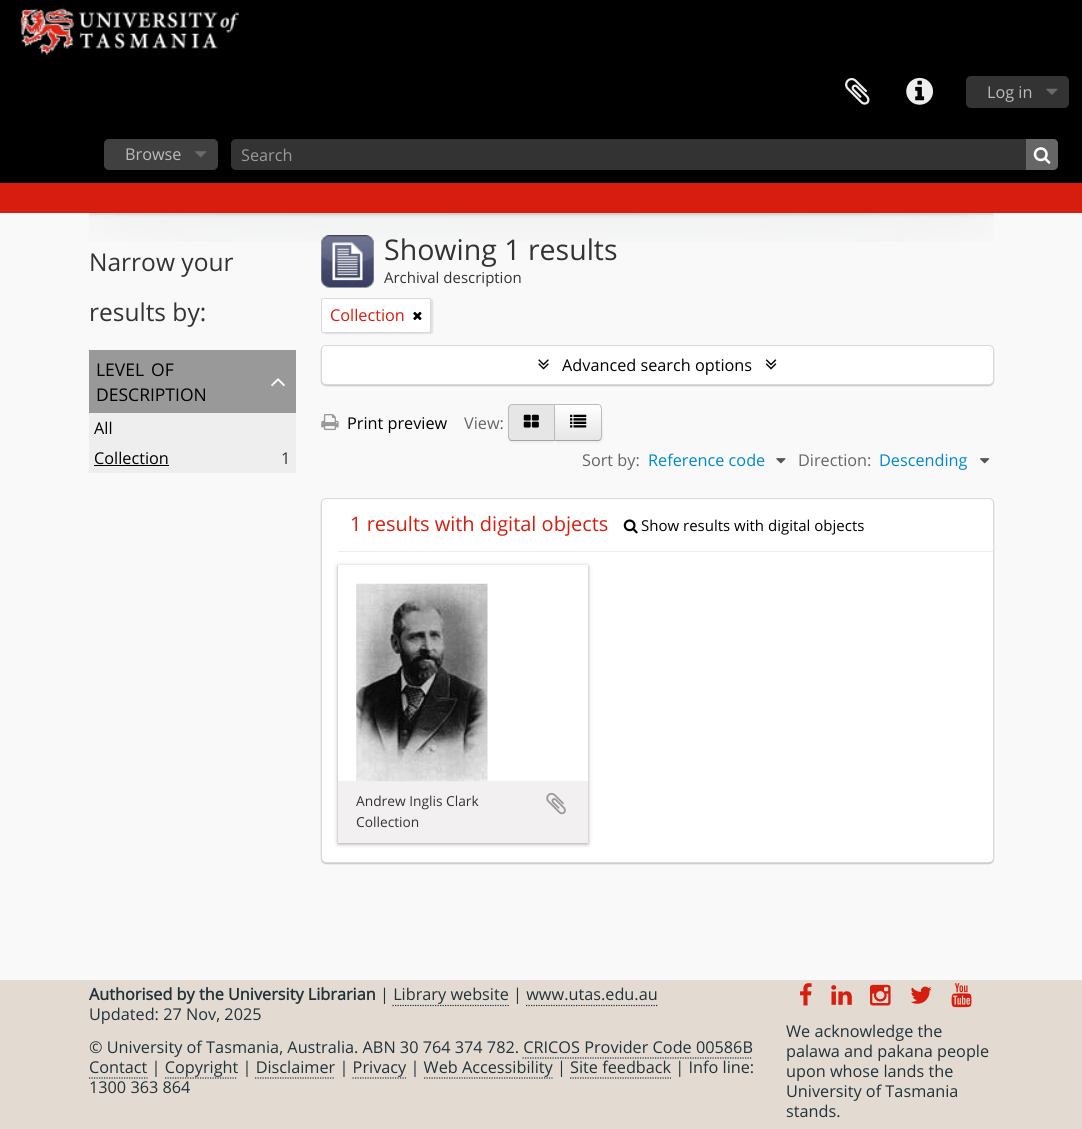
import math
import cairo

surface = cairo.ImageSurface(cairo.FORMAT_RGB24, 1082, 1129)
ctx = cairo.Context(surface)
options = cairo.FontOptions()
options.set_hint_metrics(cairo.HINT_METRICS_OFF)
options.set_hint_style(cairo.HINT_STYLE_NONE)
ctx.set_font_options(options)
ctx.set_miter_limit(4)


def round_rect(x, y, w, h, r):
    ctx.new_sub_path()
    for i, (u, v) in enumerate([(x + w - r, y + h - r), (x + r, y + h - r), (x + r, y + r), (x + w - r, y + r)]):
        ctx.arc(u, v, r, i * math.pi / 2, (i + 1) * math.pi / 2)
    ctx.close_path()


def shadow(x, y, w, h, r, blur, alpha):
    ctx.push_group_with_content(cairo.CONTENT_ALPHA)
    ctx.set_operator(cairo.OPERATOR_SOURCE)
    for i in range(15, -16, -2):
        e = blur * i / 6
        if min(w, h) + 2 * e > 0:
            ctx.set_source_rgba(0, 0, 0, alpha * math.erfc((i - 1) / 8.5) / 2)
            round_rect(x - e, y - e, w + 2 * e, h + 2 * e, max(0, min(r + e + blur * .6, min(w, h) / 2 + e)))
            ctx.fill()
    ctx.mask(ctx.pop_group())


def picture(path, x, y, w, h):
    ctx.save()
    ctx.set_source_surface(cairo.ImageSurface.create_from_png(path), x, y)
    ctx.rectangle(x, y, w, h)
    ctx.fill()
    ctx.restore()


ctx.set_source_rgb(0.973, 0.973, 0.973)
ctx.paint()
ctx.set_source_rgb(0, 0, 0)
ctx.rectangle(0, 0, 1082, 183)
ctx.fill()
picture("img1.png", 20, 8, 219, 48)
picture("img2.png", 845, 78, 25, 27)
picture("img3.png", 906, 77, 27, 28)
ctx.set_source_rgb(0.2, 0.2, 0.2)
round_rect(966, 76, 103, 32, 5)
ctx.fill()
picture("img4.png", 1046, 88, 12, 7)
ctx.select_font_face("Open Sans")
ctx.set_font_size(16.25)
ctx.set_source_rgb(0.733, 0.733, 0.733)
ctx.move_to(987, 98)
ctx.show_text("Log in")
ctx.set_source_rgb(0.251, 0.251, 0.251)
round_rect(104, 139, 114, 31, 5)
ctx.fill()
picture("img5.png", 195, 151, 12, 7)
ctx.set_source_rgb(0.733, 0.733, 0.733)
ctx.move_to(125, 160)
ctx.show_text("Browse")
ctx.set_source_rgb(0.2, 0.2, 0.2)
round_rect(231, 139, 827, 31, 5)
ctx.fill()
ctx.set_source_rgba(0, 0, 0, 0.07)
ctx.new_path()
ctx.move_to(236, 140)
ctx.line_to(1052, 140)
ctx.curve_to(1055, 140, 1058, 142, 1058, 145)
ctx.line_to(1058, 144)
ctx.curve_to(1058, 141, 1056, 139, 1053, 139)
ctx.line_to(236, 139)
ctx.curve_to(233, 139, 231, 141, 231, 144)
ctx.line_to(231, 145)
ctx.curve_to(231, 142, 233, 140, 236, 140)
ctx.close_path()
ctx.fill()
ctx.set_source_rgb(0.6, 0.6, 0.6)
ctx.move_to(241, 161)
ctx.show_text("Search")
ctx.set_source_rgb(0.4, 0.4, 0.4)
ctx.new_path()
ctx.move_to(1026, 139)
ctx.line_to(1053, 139)
ctx.curve_to(1056, 139, 1058, 141, 1058, 144)
ctx.line_to(1058, 165)
ctx.curve_to(1058, 168, 1056, 170, 1053, 170)
ctx.line_to(1026, 170)
ctx.close_path()
ctx.fill()
picture("img6.png", 1033, 147, 18, 17)
ctx.set_source_rgb(0.843, 0.114, 0.051)
ctx.rectangle(0, 183, 1082, 30)
ctx.fill()
picture("img7.png", 88, 213, 906, 29)
ctx.set_font_size(24.5)
ctx.set_source_rgb(0.2, 0.2, 0.2)
ctx.move_to(89, 271)
ctx.show_text("Narrow your")
ctx.move_to(89, 321)
ctx.show_text("results by:")
ctx.set_source_rgb(0.6, 0.6, 0.6)
ctx.rectangle(89, 350, 207, 63)
ctx.fill()
ctx.set_font_size(17.5)
ctx.set_source_rgb(0, 0, 0)
ctx.move_to(96, 376)
ctx.show_text("LEVEL")
ctx.move_to(151, 376)
ctx.show_text("OF")
picture("img8.png", 271, 378, 14, 9)
ctx.move_to(96, 401)
ctx.show_text("DESCRIPTION")
ctx.set_source_rgb(0.933, 0.933, 0.933)
ctx.rectangle(89, 413, 207, 60)
ctx.fill()
ctx.set_font_size(16.25)
ctx.set_source_rgb(0, 0, 0)
ctx.move_to(94, 434)
ctx.show_text("All")
ctx.move_to(94, 464)
ctx.show_text("Collection")
ctx.rectangle(94, 465, 75, 1)
ctx.fill()
ctx.set_source_rgb(0.2, 0.2, 0.2)
ctx.move_to(281, 464)
ctx.show_text("1")
picture("img9.png", 321, 235, 53, 53)
ctx.set_font_size(28.5)
ctx.move_to(384, 260)
ctx.show_text("Showing 1 results")
ctx.set_font_size(15)
ctx.move_to(384, 283)
ctx.show_text("Archival description")
ctx.set_source_rgb(0, 0, 0)
shadow(323, 299, 110, 35, 2.5, 0.5, 0.1)
ctx.set_source_rgb(1, 1, 1)
round_rect(321.5, 298.5, 109, 34, 2)
ctx.fill_preserve()
ctx.set_source_rgb(0.851, 0.851, 0.851)
ctx.set_line_width(1)
ctx.stroke()
ctx.set_font_size(16.25)
ctx.set_source_rgb(0.843, 0.114, 0.051)
ctx.move_to(330, 321)
ctx.show_text("Collection")
picture("img10.png", 413, 311, 9, 10)
ctx.set_source_rgb(0, 0, 0)
shadow(321, 346, 673, 40, 5, 0.5, 0.2)
ctx.set_source_rgb(1, 1, 1)
round_rect(321.5, 345.5, 672, 39, 4.5)
ctx.fill_preserve()
ctx.set_source_rgb(0.851, 0.851, 0.851)
ctx.stroke()
picture("img11.png", 538, 359, 11, 11)
ctx.set_source_rgb(0, 0, 0)
ctx.move_to(562, 371)
ctx.show_text("Advanced search options")
picture("img12.png", 765, 359, 12, 11)
picture("img13.png", 321, 414, 18, 17)
ctx.move_to(347, 429)
ctx.show_text("Print preview")
ctx.set_source_rgb(0.4, 0.4, 0.4)
ctx.move_to(464, 429)
ctx.show_text("View:")
ctx.set_source_rgb(0, 0, 0)
shadow(554, 405, 49, 38, 5, 1, 0.05)
ctx.set_source_rgb(0.961, 0.961, 0.961)
ctx.new_path()
ctx.move_to(554, 404)
ctx.line_to(598, 404)
ctx.curve_to(601, 404, 603, 406, 603, 409)
ctx.line_to(603, 436)
ctx.curve_to(603, 439, 601, 441, 598, 441)
ctx.line_to(554, 441)
ctx.close_path()
ctx.fill()
ctx.save()
ctx.new_path()
ctx.move_to(554, 404)
ctx.line_to(598, 404)
ctx.curve_to(601, 404, 603, 406, 603, 409)
ctx.line_to(603, 436)
ctx.curve_to(603, 439, 601, 441, 598, 441)
ctx.line_to(554, 441)
ctx.close_path()
ctx.clip()
gradient = cairo.LinearGradient(578, 405, 578, 440)
gradient.add_color_stop_rgba(0, 1, 1, 1, 1)
gradient.add_color_stop_rgba(1, 0.902, 0.902, 0.902, 1)
ctx.set_source(gradient)
ctx.rectangle(555, 405, 48, 35)
ctx.fill()
ctx.restore()
ctx.set_source_rgb(0.733, 0.733, 0.733)
ctx.new_path()
ctx.move_to(554, 404)
ctx.line_to(555, 405)
ctx.line_to(599, 405)
ctx.line_to(600, 406)
ctx.line_to(601, 405)
ctx.curve_to(600, 405, 599, 404, 598, 404)
ctx.close_path()
ctx.fill()
ctx.new_path()
ctx.move_to(601, 405.5)
ctx.curve_to(601.5, 406.5, 602, 407.5, 602, 409)
ctx.line_to(602, 436)
ctx.curve_to(602, 437.5, 601.5, 438.5, 601, 439.5)
ctx.line_to(600, 439)
ctx.curve_to(600.5, 438, 601, 437, 601, 436)
ctx.line_to(601, 409)
ctx.curve_to(601, 408, 600.5, 407, 600, 406)
ctx.close_path()
ctx.fill()
ctx.set_source_rgb(0.635, 0.635, 0.635)
ctx.new_path()
ctx.move_to(601, 440)
ctx.line_to(599, 441)
ctx.line_to(554, 441)
ctx.line_to(555, 440)
ctx.line_to(599, 440)
ctx.line_to(600, 439)
ctx.close_path()
ctx.fill()
ctx.set_source_rgb(0, 0, 0)
shadow(508, 405, 47, 38, 5, 1, 0.05)
ctx.set_source_rgb(0.902, 0.902, 0.902)
ctx.new_path()
ctx.move_to(513, 404)
ctx.line_to(555, 404)
ctx.line_to(555, 441)
ctx.line_to(513, 441)
ctx.curve_to(510, 441, 508, 439, 508, 436)
ctx.line_to(508, 409)
ctx.curve_to(508, 406, 510, 404, 513, 404)
ctx.close_path()
ctx.fill()
ctx.set_source_rgb(0.733, 0.733, 0.733)
ctx.new_path()
ctx.move_to(512, 404)
ctx.curve_to(511, 404, 510, 405, 509, 405)
ctx.line_to(510, 406)
ctx.line_to(511, 405)
ctx.line_to(554, 405)
ctx.line_to(555, 404)
ctx.close_path()
ctx.fill()
ctx.new_path()
ctx.move_to(555, 441)
ctx.line_to(555, 404)
ctx.line_to(554, 405)
ctx.line_to(554, 440)
ctx.close_path()
ctx.fill()
ctx.set_source_rgb(0.635, 0.635, 0.635)
ctx.new_path()
ctx.move_to(555, 441)
ctx.line_to(511, 441)
ctx.line_to(509, 440)
ctx.line_to(510, 439)
ctx.line_to(511, 440)
ctx.line_to(554, 440)
ctx.close_path()
ctx.fill()
ctx.set_source_rgb(0.733, 0.733, 0.733)
ctx.new_path()
ctx.move_to(509, 405.5)
ctx.curve_to(508.5, 406.5, 508, 407.5, 508, 409)
ctx.line_to(508, 436)
ctx.curve_to(508, 437.5, 508.5, 438.5, 509, 439.5)
ctx.line_to(510, 439)
ctx.curve_to(509.5, 438, 509, 437, 509, 436)
ctx.line_to(509, 409)
ctx.curve_to(509, 408, 509.5, 407, 510, 406)
ctx.close_path()
ctx.fill()
picture("img14.png", 523, 414, 16, 14)
picture("img15.png", 570, 414, 17, 14)
ctx.set_source_rgb(0.4, 0.4, 0.4)
ctx.move_to(582, 466)
ctx.show_text("Sort by:")
ctx.set_source_rgb(0, 0.533, 0.8)
ctx.move_to(648, 466)
ctx.show_text("Reference code")
picture("img16.png", 776, 458, 10, 6)
ctx.set_source_rgb(0.4, 0.4, 0.4)
ctx.move_to(798, 466)
ctx.show_text("Direction:")
ctx.set_source_rgb(0, 0.533, 0.8)
ctx.move_to(879, 466)
ctx.show_text("Descending")
picture("img17.png", 980, 458, 10, 6)
ctx.set_source_rgb(0, 0, 0)
shadow(321, 499, 673, 365, 5, 0.5, 0.2)
ctx.set_source_rgb(1, 1, 1)
round_rect(321.5, 498.5, 672, 364, 4.5)
ctx.fill_preserve()
ctx.set_source_rgb(0.851, 0.851, 0.851)
ctx.stroke()
ctx.set_source_rgb(0.933, 0.933, 0.933)
ctx.rectangle(338, 551, 655, 1)
ctx.fill()
ctx.set_font_size(20)
ctx.set_source_rgb(0.843, 0.114, 0.051)
ctx.move_to(350, 531)
ctx.show_text("1 results with digital objects")
picture("img18.png", 623, 519, 15, 15)
ctx.set_font_size(15)
ctx.set_source_rgb(0, 0, 0)
ctx.move_to(641, 531)
ctx.show_text("Show results with digital objects")
ctx.set_source_rgb(0.098, 0.098, 0.098)
shadow(338, 566, 250, 278, 0, 2, 0.4)
ctx.set_source_rgb(1, 1, 1)
ctx.rectangle(338, 565, 250, 216)
ctx.fill()
ctx.set_source_rgb(0.949, 0.941, 0.941)
ctx.rectangle(338, 781, 250, 62)
ctx.fill()
picture("img19.png", 356, 583, 132, 199)
ctx.set_font_size(13.75)
ctx.set_source_rgb(0.2, 0.2, 0.2)
ctx.move_to(356, 806)
ctx.show_text("Andrew Inglis Clark")
picture("img20.png", 546, 792, 20, 23)
ctx.move_to(356, 827)
ctx.show_text("Collection")
ctx.set_source_rgb(0.89, 0.855, 0.82)
ctx.rectangle(0, 980, 1082, 149)
ctx.fill()
ctx.select_font_face("Open Sans", cairo.FONT_SLANT_NORMAL, cairo.FONT_WEIGHT_BOLD)
ctx.set_font_size(16.25)
ctx.set_source_rgb(0.129, 0.2, 0.227)
ctx.move_to(89, 1000)
ctx.show_text("Authorised by the University Librarian")
ctx.select_font_face("Open Sans")
ctx.move_to(380, 1000)
ctx.show_text("| Library website | www.utas.edu.au")
ctx.new_path()
ctx.move_to(392.5, 1005.5)
ctx.line_to(509, 1005.5)
ctx.set_line_width(1.2)
ctx.set_dash([1.25, 1.25])
ctx.stroke()
ctx.new_path()
ctx.move_to(526, 1005.5)
ctx.line_to(657.5, 1005.5)
ctx.stroke()
ctx.move_to(89, 1020)
ctx.show_text("Updated: 27 Nov, 2025")
ctx.move_to(89, 1053)
ctx.show_text("© University of Tasmania, Australia. ABN 30 764 374 782. CRICOS Provider Code 00586B")
ctx.new_path()
ctx.move_to(522.5, 1058)
ctx.line_to(752.5, 1058)
ctx.stroke()
ctx.move_to(89, 1073)
ctx.show_text("Contact | Copyright | Disclaimer | Privacy | Web Accessibility | Site feedback | Info line:")
ctx.new_path()
ctx.move_to(89, 1078)
ctx.line_to(147.5, 1078)
ctx.stroke()
ctx.new_path()
ctx.move_to(165, 1078)
ctx.line_to(237.5, 1078)
ctx.stroke()
ctx.new_path()
ctx.move_to(255, 1078)
ctx.line_to(335, 1078)
ctx.stroke()
ctx.new_path()
ctx.move_to(352.5, 1078)
ctx.line_to(406, 1078)
ctx.stroke()
ctx.new_path()
ctx.move_to(424, 1078)
ctx.line_to(552.5, 1078)
ctx.stroke()
ctx.new_path()
ctx.move_to(570, 1078)
ctx.line_to(671, 1078)
ctx.stroke()
ctx.move_to(89, 1093)
ctx.show_text("1300 363 864")
picture("img21.png", 800, 983, 12, 23)
picture("img22.png", 831, 985, 21, 20)
picture("img23.png", 870, 984, 21, 22)
picture("img24.png", 910, 986, 22, 18)
picture("img25.png", 951, 983, 21, 25)
ctx.move_to(786, 1037)
ctx.show_text("We acknowledge the")
ctx.move_to(786, 1057)
ctx.show_text("palawa and pakana people")
ctx.move_to(786, 1077)
ctx.show_text("upon whose lands the")
ctx.move_to(786, 1097)
ctx.show_text("University of Tasmania")
ctx.move_to(786, 1117)
ctx.show_text("stands.")
surface.write_to_png("page.png")
